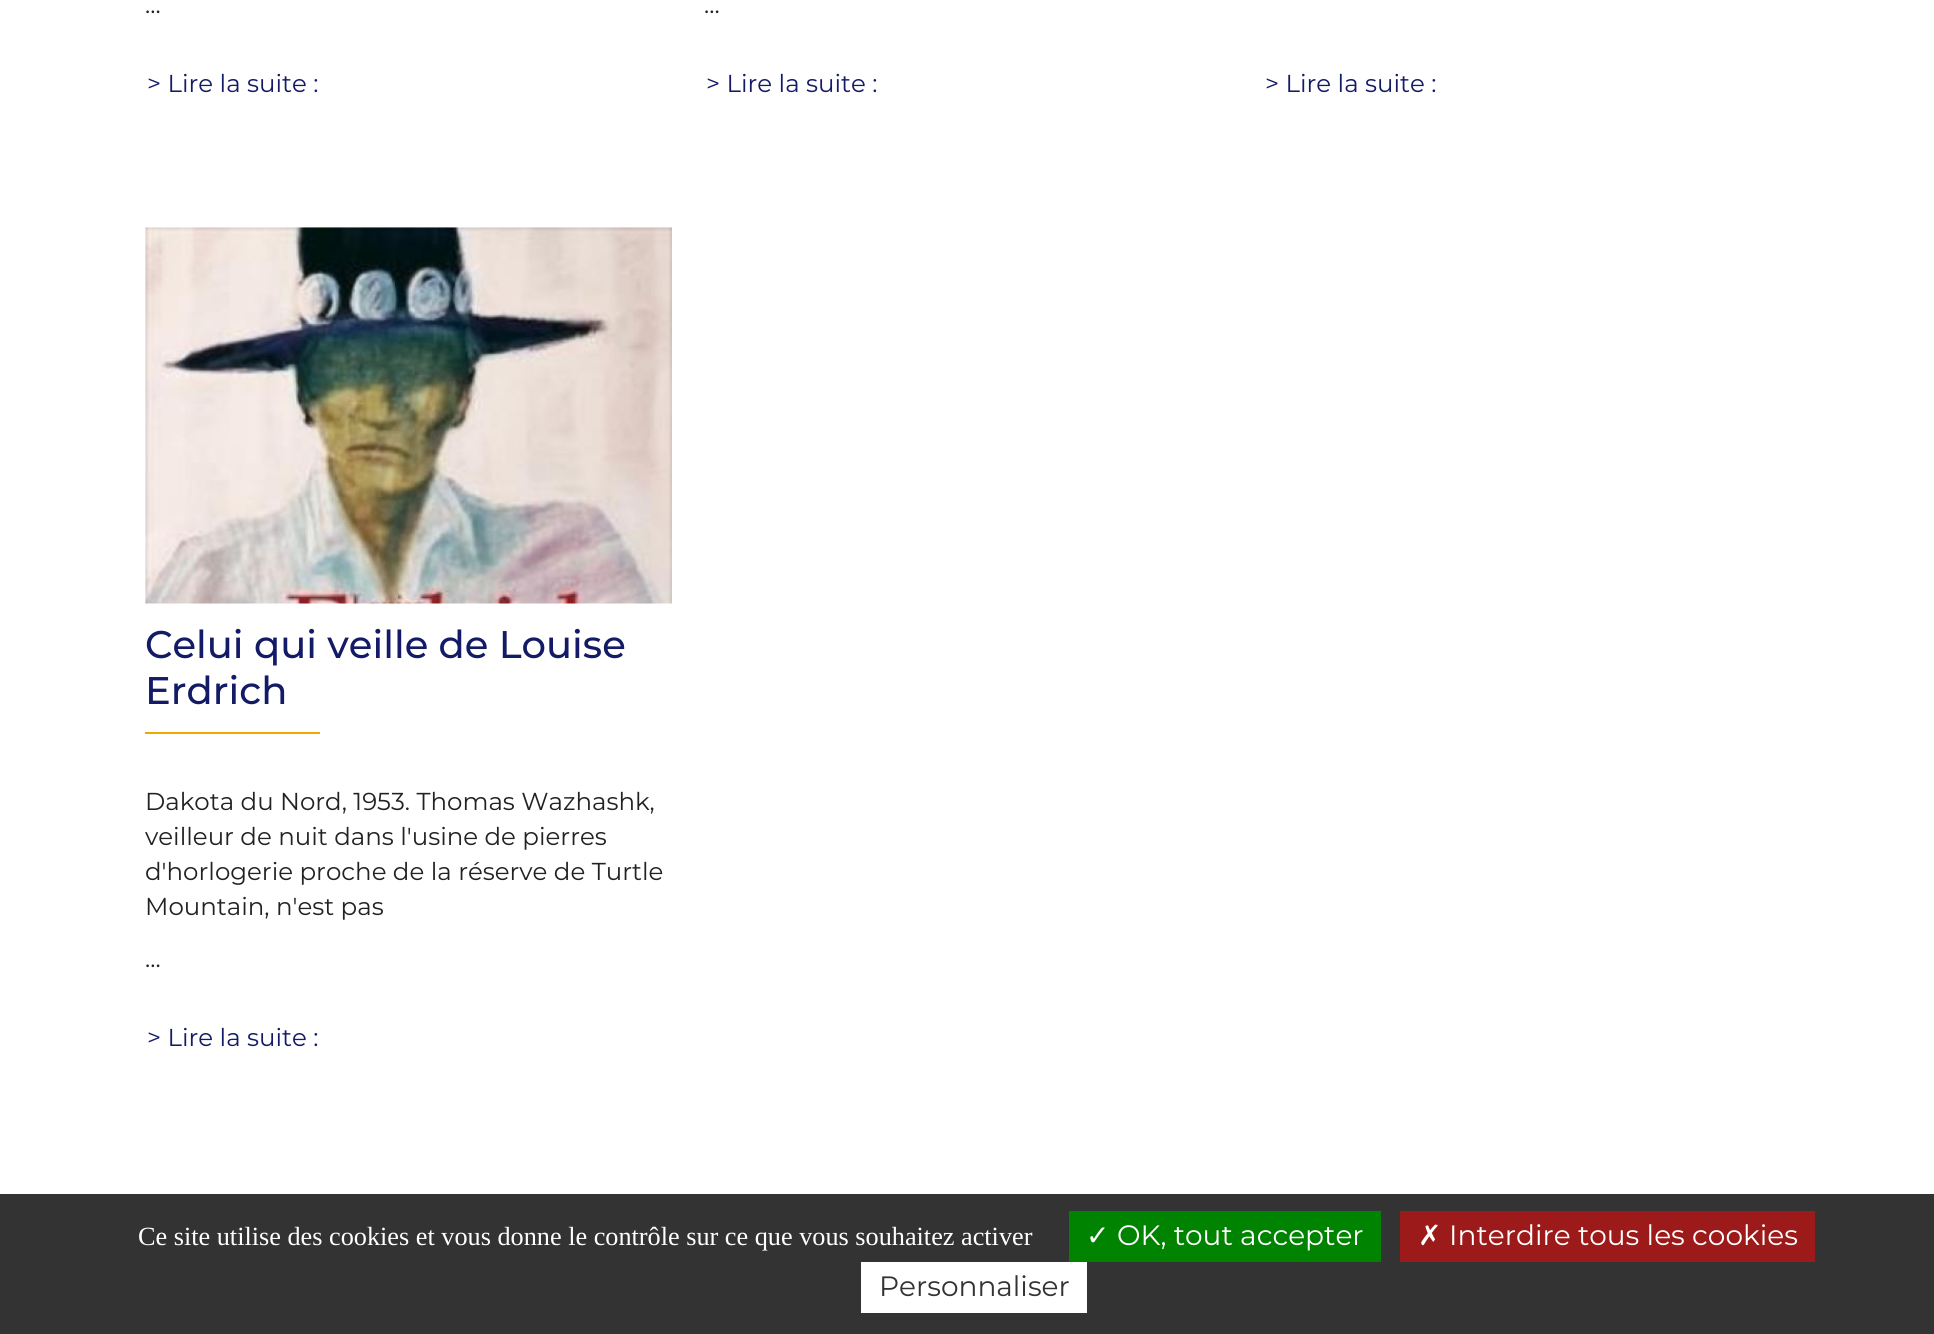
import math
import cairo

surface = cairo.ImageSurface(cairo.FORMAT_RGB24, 1934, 1334)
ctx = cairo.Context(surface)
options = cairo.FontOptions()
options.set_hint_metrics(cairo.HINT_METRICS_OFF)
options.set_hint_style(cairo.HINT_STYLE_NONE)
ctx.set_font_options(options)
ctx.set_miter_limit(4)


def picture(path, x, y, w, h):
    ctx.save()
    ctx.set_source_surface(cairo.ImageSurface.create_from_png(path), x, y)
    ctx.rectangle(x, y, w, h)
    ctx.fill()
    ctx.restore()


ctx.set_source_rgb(1, 1, 1)
ctx.paint()
ctx.select_font_face("Montserrat")
ctx.set_font_size(24.5)
ctx.set_source_rgb(0.133, 0.133, 0.133)
ctx.move_to(145, 13)
ctx.show_text("...")
ctx.set_source_rgb(0.078, 0.102, 0.4)
ctx.move_to(147, 92)
ctx.show_text("> Lire la suite :")
ctx.set_source_rgb(0.133, 0.133, 0.133)
ctx.move_to(704, 13)
ctx.show_text("...")
ctx.set_source_rgb(0.078, 0.102, 0.4)
ctx.move_to(706, 92)
ctx.show_text("> Lire la suite :")
ctx.move_to(1265, 92)
ctx.show_text("> Lire la suite :")
picture("img1.png", 145, 227, 527, 377)
ctx.select_font_face("Montserrat Medium")
ctx.set_font_size(38.5)
ctx.move_to(145, 658)
ctx.show_text("Celui qui veille de Louise")
ctx.move_to(145, 704)
ctx.show_text("Erdrich")
ctx.set_source_rgb(0.941, 0.663, 0)
ctx.rectangle(145, 732, 175, 2)
ctx.fill()
ctx.select_font_face("Montserrat")
ctx.set_font_size(24.5)
ctx.set_source_rgb(0.133, 0.133, 0.133)
ctx.move_to(145, 810)
ctx.show_text("Dakota du Nord, 1953. Thomas Wazhashk,")
ctx.move_to(145, 845)
ctx.show_text("veilleur de nuit dans l'usine de pierres")
ctx.move_to(145, 880)
ctx.show_text("d'horlogerie proche de la réserve de Turtle")
ctx.move_to(145, 915)
ctx.show_text("Mountain, n'est pas")
ctx.move_to(145, 967)
ctx.show_text("...")
ctx.set_source_rgb(0.078, 0.102, 0.4)
ctx.move_to(147, 1046)
ctx.show_text("> Lire la suite :")
ctx.set_source_rgb(0.2, 0.2, 0.2)
ctx.rectangle(0, 1194, 1934, 140)
ctx.fill()
ctx.select_font_face("Liberation Serif")
ctx.set_font_size(26.25)
ctx.set_source_rgb(1, 1, 1)
ctx.move_to(138, 1245)
ctx.show_text("Ce site utilise des cookies et vous donne le contrôle sur ce que vous souhaitez activer")
ctx.set_source_rgb(0, 0.514, 0)
ctx.rectangle(1069, 1211, 312, 51)
ctx.fill()
ctx.select_font_face("DejaVu Sans")
ctx.set_font_size(28)
ctx.set_source_rgb(1, 1, 1)
ctx.move_to(1086, 1245)
ctx.show_text("✓")
ctx.select_font_face("Montserrat")
ctx.move_to(1117, 1245)
ctx.show_text("OK, tout accepter")
ctx.set_source_rgb(0.612, 0.102, 0.102)
ctx.rectangle(1400, 1211, 415, 51)
ctx.fill()
ctx.select_font_face("DejaVu Sans")
ctx.set_source_rgb(1, 1, 1)
ctx.move_to(1418, 1245)
ctx.show_text("✗")
ctx.select_font_face("Montserrat")
ctx.move_to(1449, 1245)
ctx.show_text("Interdire tous les cookies")
ctx.rectangle(861, 1262, 226, 51)
ctx.fill()
ctx.set_source_rgb(0.2, 0.2, 0.2)
ctx.move_to(879, 1296)
ctx.show_text("Personnaliser")
surface.write_to_png("page.png")
